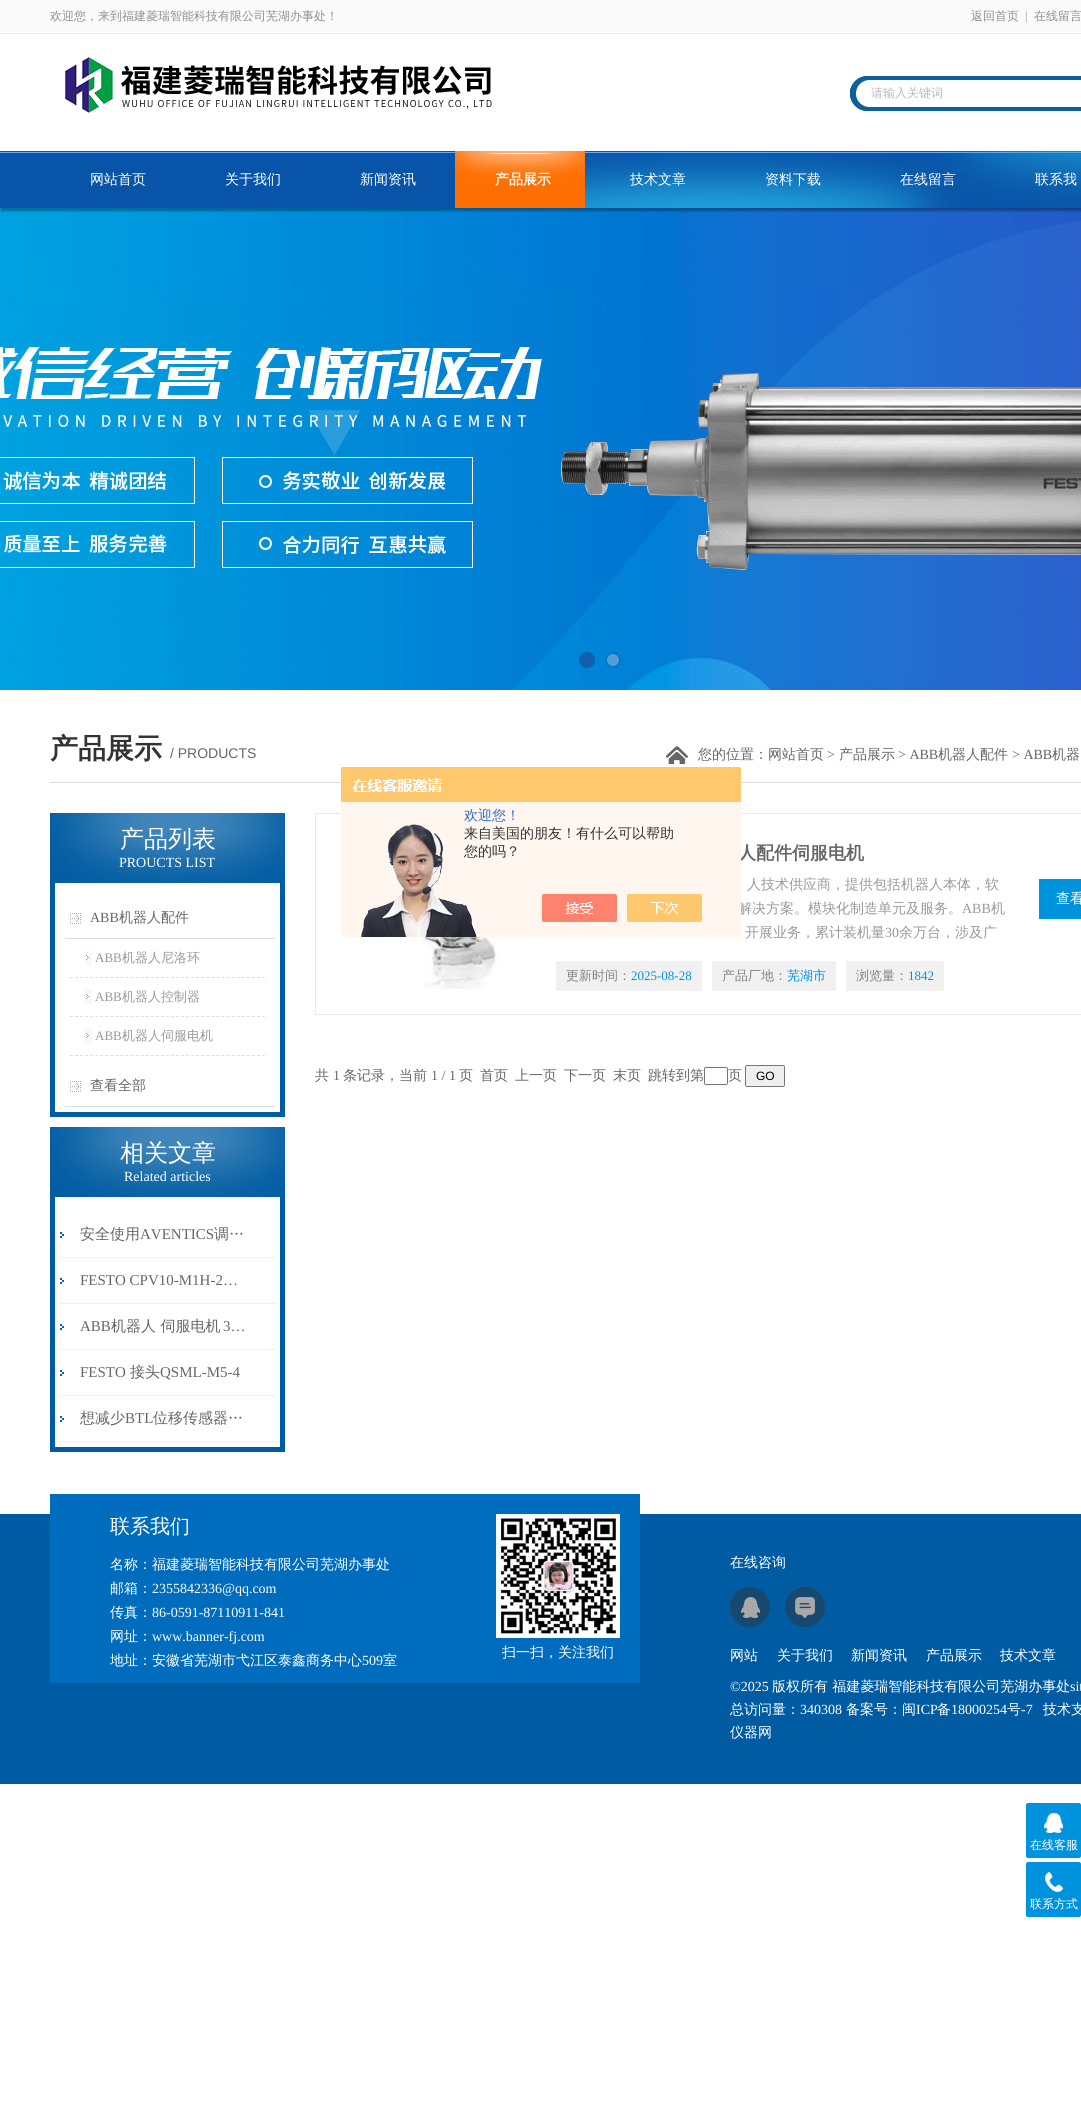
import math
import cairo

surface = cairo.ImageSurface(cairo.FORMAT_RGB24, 1081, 2128)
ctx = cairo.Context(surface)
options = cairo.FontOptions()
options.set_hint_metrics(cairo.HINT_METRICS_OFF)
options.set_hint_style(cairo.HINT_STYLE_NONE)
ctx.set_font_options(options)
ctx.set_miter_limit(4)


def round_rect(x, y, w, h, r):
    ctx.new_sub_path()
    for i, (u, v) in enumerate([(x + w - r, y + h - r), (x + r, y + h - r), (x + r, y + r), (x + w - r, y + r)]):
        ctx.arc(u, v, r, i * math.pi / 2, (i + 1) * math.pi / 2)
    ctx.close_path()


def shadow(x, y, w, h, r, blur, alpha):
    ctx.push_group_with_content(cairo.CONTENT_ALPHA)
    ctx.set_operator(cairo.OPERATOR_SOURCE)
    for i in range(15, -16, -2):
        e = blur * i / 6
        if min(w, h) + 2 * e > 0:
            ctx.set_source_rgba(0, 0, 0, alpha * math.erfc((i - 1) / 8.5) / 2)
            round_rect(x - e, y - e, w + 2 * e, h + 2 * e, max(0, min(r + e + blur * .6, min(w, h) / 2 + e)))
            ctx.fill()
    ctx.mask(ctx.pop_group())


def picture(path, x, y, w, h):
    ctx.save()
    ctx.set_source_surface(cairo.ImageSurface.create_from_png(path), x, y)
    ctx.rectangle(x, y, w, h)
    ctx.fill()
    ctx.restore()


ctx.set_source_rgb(1, 1, 1)
ctx.paint()
picture("img1.png", 0, 0, 1081, 34)
ctx.select_font_face("WenQuanYi Zen Hei Medium")
ctx.set_font_size(12)
ctx.set_source_rgb(0.573, 0.565, 0.569)
ctx.move_to(50, 20)
ctx.show_text("欢迎您，来到福建菱瑞智能科技有限公司芜湖办事处！")
ctx.move_to(971, 20)
ctx.show_text("返回首页")
ctx.select_font_face("Liberation Serif")
ctx.move_to(1025, 20)
ctx.show_text("|")
ctx.select_font_face("WenQuanYi Zen Hei Medium")
ctx.move_to(1034, 20)
ctx.show_text("在线留言")
picture("img2.png", 65, 57, 427, 56)
picture("img3.png", 850, 73, 231, 40)
ctx.set_source_rgb(0.722, 0.722, 0.722)
ctx.move_to(871, 97)
ctx.show_text("请输入关键词")
picture("img6.png", 0, 208, 1081, 482)
ctx.set_source_rgb(0, 0, 0)
shadow(1, 156, 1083, 55, 0, 1, 0.3)
picture("img4.png", 0, 151, 1081, 57)
ctx.set_font_size(14)
ctx.set_source_rgb(1, 1, 1)
ctx.move_to(90, 184)
ctx.show_text("网站首页")
ctx.move_to(225, 184)
ctx.show_text("关于我们")
ctx.move_to(360, 184)
ctx.show_text("新闻资讯")
picture("img5.png", 455, 151, 130, 57)
ctx.select_font_face("WenQuanYi Zen Hei", cairo.FONT_SLANT_NORMAL, cairo.FONT_WEIGHT_BOLD)
ctx.move_to(495, 184)
ctx.show_text("产品展示")
ctx.select_font_face("WenQuanYi Zen Hei Medium")
ctx.move_to(630, 184)
ctx.show_text("技术文章")
ctx.move_to(765, 184)
ctx.show_text("资料下载")
ctx.move_to(900, 184)
ctx.show_text("在线留言")
ctx.move_to(1035, 184)
ctx.show_text("联系我")
ctx.set_source_rgb(0.063, 0.376, 0.671)
ctx.new_path()
ctx.arc(587, 660, 7, 0, 2 * math.pi)
ctx.fill_preserve()
ctx.stroke()
ctx.set_source_rgb(0.322, 0.627, 0.827)
ctx.arc(613, 660, 7, 0, 2 * math.pi)
ctx.fill_preserve()
ctx.set_source_rgb(0.024, 0.459, 0.773)
ctx.stroke()
ctx.set_source_rgb(0.867, 0.867, 0.867)
ctx.rectangle(50, 782, 1031, 1)
ctx.fill()
ctx.select_font_face("WenQuanYi Zen Hei", cairo.FONT_SLANT_NORMAL, cairo.FONT_WEIGHT_BOLD)
ctx.set_font_size(28)
ctx.set_source_rgb(0.2, 0.2, 0.2)
ctx.move_to(50, 758)
ctx.show_text("产品展示")
ctx.select_font_face("Liberation Sans")
ctx.set_font_size(14)
ctx.set_source_rgb(0.4, 0.4, 0.4)
ctx.move_to(170, 758)
ctx.show_text("/ PRODUCTS")
picture("img7.png", 666, 746, 22, 18)
ctx.select_font_face("WenQuanYi Zen Hei Medium")
ctx.move_to(698, 759)
ctx.show_text("您的位置：网站首页")
ctx.select_font_face("Liberation Serif")
ctx.move_to(827, 759)
ctx.show_text(">")
ctx.select_font_face("WenQuanYi Zen Hei Medium")
ctx.move_to(839, 759)
ctx.show_text("产品展示")
ctx.select_font_face("Liberation Serif")
ctx.move_to(898, 759)
ctx.show_text("> ABB")
ctx.select_font_face("WenQuanYi Zen Hei Medium")
ctx.move_to(938, 759)
ctx.show_text("机器人配件")
ctx.select_font_face("Liberation Serif")
ctx.move_to(1012, 759)
ctx.show_text("> ABB")
ctx.select_font_face("WenQuanYi Zen Hei Medium")
ctx.move_to(1052, 759)
ctx.show_text("机器")
picture("img8.png", 50, 813, 235, 70)
ctx.set_font_size(24)
ctx.set_source_rgb(1, 1, 1)
ctx.move_to(120, 847)
ctx.show_text("产品列表")
ctx.select_font_face("Liberation Serif")
ctx.set_font_size(14)
ctx.move_to(119, 867)
ctx.show_text("PROUCTS LIST")
ctx.set_source_rgb(0, 0.361, 0.635)
ctx.rectangle(280, 883, 5, 234)
ctx.fill()
ctx.rectangle(50, 1112, 235, 5)
ctx.fill()
ctx.rectangle(50, 883, 5, 234)
ctx.fill()
picture("img9.png", 70, 913, 11, 11)
ctx.set_source_rgb(0.871, 0.871, 0.871)
ctx.rectangle(65, 938, 210, 1)
ctx.fill()
ctx.set_source_rgb(0.4, 0.4, 0.4)
ctx.move_to(90, 922)
ctx.show_text("ABB")
ctx.select_font_face("WenQuanYi Zen Hei Medium")
ctx.move_to(119, 922)
ctx.show_text("机器人配件")
ctx.new_path()
ctx.move_to(70, 977.5)
ctx.line_to(265, 977.5)
ctx.set_source_rgb(0.871, 0.871, 0.871)
ctx.set_line_width(1)
ctx.set_dash([3, 2.05])
ctx.stroke()
picture("img10.png", 85, 951, 7, 14)
ctx.select_font_face("Liberation Serif")
ctx.set_font_size(13)
ctx.set_source_rgb(0.6, 0.6, 0.6)
ctx.move_to(95, 962)
ctx.show_text("ABB")
ctx.select_font_face("WenQuanYi Zen Hei Medium")
ctx.move_to(122, 962)
ctx.show_text("机器人尼洛环")
ctx.new_path()
ctx.move_to(70, 1016.5)
ctx.line_to(265, 1016.5)
ctx.set_source_rgb(0.871, 0.871, 0.871)
ctx.stroke()
picture("img10.png", 85, 990, 7, 14)
ctx.select_font_face("Liberation Serif")
ctx.set_source_rgb(0.6, 0.6, 0.6)
ctx.move_to(95, 1001)
ctx.show_text("ABB")
ctx.select_font_face("WenQuanYi Zen Hei Medium")
ctx.move_to(122, 1001)
ctx.show_text("机器人控制器")
ctx.new_path()
ctx.move_to(70, 1055.5)
ctx.line_to(265, 1055.5)
ctx.set_source_rgb(0.871, 0.871, 0.871)
ctx.stroke()
picture("img10.png", 85, 1029, 7, 14)
ctx.select_font_face("Liberation Serif")
ctx.set_source_rgb(0.6, 0.6, 0.6)
ctx.move_to(95, 1040)
ctx.show_text("ABB")
ctx.select_font_face("WenQuanYi Zen Hei Medium")
ctx.move_to(122, 1040)
ctx.show_text("机器人伺服电机")
picture("img9.png", 70, 1081, 11, 11)
ctx.set_source_rgb(0.871, 0.871, 0.871)
ctx.rectangle(65, 1106, 210, 1)
ctx.fill()
ctx.set_font_size(14)
ctx.set_source_rgb(0.4, 0.4, 0.4)
ctx.move_to(90, 1090)
ctx.show_text("查看全部")
picture("img8.png", 50, 1127, 235, 70)
ctx.set_font_size(24)
ctx.set_source_rgb(1, 1, 1)
ctx.move_to(120, 1161)
ctx.show_text("相关文章")
ctx.select_font_face("Liberation Serif")
ctx.set_font_size(14)
ctx.move_to(124, 1181)
ctx.show_text("Related articles")
ctx.set_source_rgb(0, 0.361, 0.635)
ctx.rectangle(280, 1197, 5, 255)
ctx.fill()
ctx.rectangle(50, 1447, 235, 5)
ctx.fill()
ctx.rectangle(50, 1197, 5, 255)
ctx.fill()
picture("img11.png", 60, 1232, 4, 6)
ctx.new_path()
ctx.move_to(60, 1257.5)
ctx.line_to(275, 1257.5)
ctx.set_source_rgb(0.898, 0.898, 0.898)
ctx.set_dash([1, 1])
ctx.stroke()
ctx.select_font_face("WenQuanYi Zen Hei Medium")
ctx.set_font_size(15)
ctx.set_source_rgb(0.4, 0.4, 0.4)
ctx.move_to(80, 1239)
ctx.show_text("安全使用")
ctx.select_font_face("Liberation Serif")
ctx.move_to(140, 1239)
ctx.show_text("AVENTICS")
ctx.select_font_face("WenQuanYi Zen Hei Medium")
ctx.move_to(214, 1239)
ctx.show_text("调…")
picture("img11.png", 60, 1278, 4, 6)
ctx.new_path()
ctx.move_to(60, 1303.5)
ctx.line_to(275, 1303.5)
ctx.set_source_rgb(0.898, 0.898, 0.898)
ctx.stroke()
ctx.select_font_face("Liberation Serif")
ctx.set_source_rgb(0.4, 0.4, 0.4)
ctx.move_to(80, 1285)
ctx.show_text("FESTO CPV10-M1H-2…")
picture("img11.png", 60, 1324, 4, 6)
ctx.new_path()
ctx.move_to(60, 1349.5)
ctx.line_to(275, 1349.5)
ctx.set_source_rgb(0.898, 0.898, 0.898)
ctx.stroke()
ctx.set_source_rgb(0.4, 0.4, 0.4)
ctx.move_to(80, 1331)
ctx.show_text("ABB")
ctx.select_font_face("WenQuanYi Zen Hei Medium")
ctx.move_to(111, 1331)
ctx.show_text("机器人 伺服电机")
ctx.select_font_face("Liberation Serif")
ctx.move_to(223, 1331)
ctx.show_text("3…")
picture("img11.png", 60, 1370, 4, 6)
ctx.new_path()
ctx.move_to(60, 1395.5)
ctx.line_to(275, 1395.5)
ctx.set_source_rgb(0.898, 0.898, 0.898)
ctx.stroke()
ctx.set_source_rgb(0.4, 0.4, 0.4)
ctx.move_to(80, 1377)
ctx.show_text("FESTO")
ctx.select_font_face("WenQuanYi Zen Hei Medium")
ctx.move_to(130, 1377)
ctx.show_text("接头")
ctx.select_font_face("Liberation Serif")
ctx.move_to(160, 1377)
ctx.show_text("QSML-M5-4")
picture("img11.png", 60, 1416, 4, 6)
ctx.new_path()
ctx.move_to(60, 1441.5)
ctx.line_to(275, 1441.5)
ctx.set_source_rgb(0.898, 0.898, 0.898)
ctx.stroke()
ctx.select_font_face("WenQuanYi Zen Hei Medium")
ctx.set_source_rgb(0.4, 0.4, 0.4)
ctx.move_to(80, 1423)
ctx.show_text("想减少")
ctx.select_font_face("Liberation Serif")
ctx.move_to(125, 1423)
ctx.show_text("BTL")
ctx.select_font_face("WenQuanYi Zen Hei Medium")
ctx.move_to(153, 1423)
ctx.show_text("位移传感器…")
ctx.rectangle(315.5, 813.5, 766, 201)
ctx.set_source_rgb(0.918, 0.918, 0.918)
ctx.set_dash([])
ctx.stroke()
ctx.select_font_face("WenQuanYi Zen Hei", cairo.FONT_SLANT_NORMAL, cairo.FONT_WEIGHT_BOLD)
ctx.set_font_size(18)
ctx.set_source_rgb(0.4, 0.4, 0.4)
ctx.move_to(738, 859)
ctx.show_text("人配件伺服电机")
ctx.select_font_face("WenQuanYi Zen Hei Medium")
ctx.set_font_size(14)
ctx.set_source_rgb(0.6, 0.6, 0.6)
ctx.move_to(747, 889)
ctx.show_text("人技术供应商，提供包括机器人本体，软")
ctx.move_to(738, 913)
ctx.show_text("解决方案。模块化制造单元及服务。")
ctx.select_font_face("Liberation Serif")
ctx.move_to(962, 913)
ctx.show_text("ABB")
ctx.select_font_face("WenQuanYi Zen Hei Medium")
ctx.move_to(991, 913)
ctx.show_text("机")
ctx.move_to(745, 937)
ctx.show_text("开展业务，累计装机量")
ctx.select_font_face("Liberation Serif")
ctx.move_to(885, 937)
ctx.show_text("30")
ctx.select_font_face("WenQuanYi Zen Hei Medium")
ctx.move_to(899, 937)
ctx.show_text("余万台，涉及广")
ctx.set_source_rgb(0.945, 0.945, 0.945)
ctx.rectangle(556, 961, 146, 30)
ctx.fill()
ctx.set_font_size(13)
ctx.set_source_rgb(0.51, 0.51, 0.51)
ctx.move_to(566, 980)
ctx.show_text("更新时间：")
ctx.select_font_face("Liberation Serif")
ctx.set_source_rgb(0, 0.576, 0.867)
ctx.move_to(631, 980)
ctx.show_text("2025-08-28")
ctx.set_source_rgb(0.945, 0.945, 0.945)
ctx.rectangle(712, 961, 124, 30)
ctx.fill()
ctx.select_font_face("WenQuanYi Zen Hei Medium")
ctx.set_source_rgb(0.51, 0.51, 0.51)
ctx.move_to(722, 980)
ctx.show_text("产品厂地：")
ctx.set_source_rgb(0, 0.576, 0.867)
ctx.move_to(787, 980)
ctx.show_text("芜湖市")
ctx.set_source_rgb(0.945, 0.945, 0.945)
ctx.rectangle(846, 961, 98, 30)
ctx.fill()
ctx.set_source_rgb(0.51, 0.51, 0.51)
ctx.move_to(856, 980)
ctx.show_text("浏览量：")
ctx.select_font_face("Liberation Serif")
ctx.set_source_rgb(0, 0.576, 0.867)
ctx.move_to(908, 980)
ctx.show_text("1842")
ctx.rectangle(1039, 879, 42, 40)
ctx.fill()
ctx.select_font_face("WenQuanYi Zen Hei Medium")
ctx.set_font_size(14)
ctx.set_source_rgb(1, 1, 1)
ctx.move_to(1056, 903)
ctx.show_text("查看")
picture("img12.png", 360, 937, 152, 52)
ctx.set_source_rgb(0.4, 0.4, 0.4)
ctx.move_to(315, 1080)
ctx.show_text("共")
ctx.select_font_face("Liberation Serif")
ctx.move_to(333, 1080)
ctx.show_text("1")
ctx.select_font_face("WenQuanYi Zen Hei Medium")
ctx.move_to(343, 1080)
ctx.show_text("条记录，当前")
ctx.select_font_face("Liberation Serif")
ctx.move_to(431, 1080)
ctx.show_text("1 / 1")
ctx.select_font_face("WenQuanYi Zen Hei Medium")
ctx.move_to(459, 1080)
ctx.show_text("页")
ctx.move_to(480, 1080)
ctx.show_text("首页")
ctx.move_to(515, 1080)
ctx.show_text("上一页")
ctx.move_to(564, 1080)
ctx.show_text("下一页")
ctx.move_to(613, 1080)
ctx.show_text("末页")
ctx.move_to(648, 1080)
ctx.show_text("跳转到第")
round_rect(704.5, 1067.5, 23, 17, 1.5)
ctx.set_source_rgb(0.463, 0.463, 0.463)
ctx.stroke()
ctx.set_source_rgb(0.4, 0.4, 0.4)
ctx.move_to(728, 1080)
ctx.show_text("页")
ctx.set_source_rgb(0.937, 0.937, 0.937)
round_rect(745.5, 1065.5, 39, 21, 1.5)
ctx.fill_preserve()
ctx.set_source_rgb(0.463, 0.463, 0.463)
ctx.stroke()
ctx.select_font_face("Liberation Sans")
ctx.set_font_size(12)
ctx.set_source_rgb(0, 0, 0)
ctx.move_to(756, 1080)
ctx.show_text("GO")
picture("img13.png", 341, 767, 400, 170)
ctx.select_font_face("WenQuanYi Zen Hei Medium")
ctx.set_font_size(14)
ctx.set_source_rgb(0.18, 0.431, 0.776)
ctx.move_to(464, 820)
ctx.show_text("欢迎您！")
ctx.set_source_rgb(0.2, 0.2, 0.2)
ctx.move_to(464, 838)
ctx.show_text("来自美国的朋友！有什么可以帮助")
ctx.move_to(464, 856)
ctx.show_text("您的吗？")
ctx.set_source_rgb(0, 0.361, 0.635)
ctx.rectangle(0, 1514, 1081, 270)
ctx.fill()
ctx.set_source_rgb(0, 0.424, 0.745)
ctx.rectangle(50, 1494, 590, 189)
ctx.fill()
ctx.set_font_size(20)
ctx.set_source_rgb(1, 1, 1)
ctx.move_to(110, 1533)
ctx.show_text("联系我们")
ctx.set_font_size(14)
ctx.move_to(110, 1569)
ctx.show_text("名称：福建菱瑞智能科技有限公司芜湖办事处")
ctx.move_to(110, 1593)
ctx.show_text("邮箱：")
ctx.select_font_face("Liberation Serif")
ctx.move_to(152, 1593)
ctx.show_text("2355842336@qq.com")
ctx.select_font_face("WenQuanYi Zen Hei Medium")
ctx.move_to(110, 1617)
ctx.show_text("传真：")
ctx.select_font_face("Liberation Serif")
ctx.move_to(152, 1617)
ctx.show_text("86-0591-87110911-841")
ctx.select_font_face("WenQuanYi Zen Hei Medium")
ctx.move_to(110, 1641)
ctx.show_text("网址：")
ctx.select_font_face("Liberation Serif")
ctx.move_to(152, 1641)
ctx.show_text("www.banner-fj.com")
ctx.select_font_face("WenQuanYi Zen Hei Medium")
ctx.move_to(110, 1665)
ctx.show_text("地址：安徽省芜湖市弋江区泰鑫商务中心")
ctx.select_font_face("Liberation Serif")
ctx.move_to(362, 1665)
ctx.show_text("509")
ctx.select_font_face("WenQuanYi Zen Hei Medium")
ctx.move_to(383, 1665)
ctx.show_text("室")
picture("img14.png", 496, 1514, 124, 124)
ctx.move_to(502, 1657)
ctx.show_text("扫一扫，关注我们")
ctx.move_to(730, 1567)
ctx.show_text("在线咨询")
ctx.set_source_rgb(0.09, 0.286, 0.439)
ctx.new_path()
ctx.arc(750, 1607, 20, 0, 2 * math.pi)
ctx.fill()
picture("img15.png", 741, 1597, 19, 21)
ctx.arc(805, 1607, 20, 0, 2 * math.pi)
ctx.fill()
picture("img16.png", 795, 1597, 20, 21)
ctx.set_source_rgb(1, 1, 1)
ctx.move_to(730, 1660)
ctx.show_text("网站")
ctx.move_to(777, 1660)
ctx.show_text("关于我们")
ctx.move_to(851, 1660)
ctx.show_text("新闻资讯")
ctx.move_to(926, 1660)
ctx.show_text("产品展示")
ctx.move_to(1000, 1660)
ctx.show_text("技术文章")
ctx.select_font_face("Liberation Serif")
ctx.move_to(730, 1691)
ctx.show_text("©2025")
ctx.select_font_face("WenQuanYi Zen Hei Medium")
ctx.move_to(772, 1691)
ctx.show_text("版权所有 福建菱瑞智能科技有限公司芜湖办事处")
ctx.select_font_face("Liberation Serif")
ctx.move_to(1070, 1691)
ctx.show_text("sit")
ctx.select_font_face("WenQuanYi Zen Hei Medium")
ctx.move_to(730, 1714)
ctx.show_text("总访问量：")
ctx.select_font_face("Liberation Serif")
ctx.move_to(800, 1714)
ctx.show_text("340308")
ctx.select_font_face("WenQuanYi Zen Hei Medium")
ctx.move_to(846, 1714)
ctx.show_text("备案号：闽")
ctx.select_font_face("Liberation Serif")
ctx.move_to(916, 1714)
ctx.show_text("ICP")
ctx.select_font_face("WenQuanYi Zen Hei Medium")
ctx.move_to(937, 1714)
ctx.show_text("备")
ctx.select_font_face("Liberation Serif")
ctx.move_to(951, 1714)
ctx.show_text("18000254")
ctx.select_font_face("WenQuanYi Zen Hei Medium")
ctx.move_to(1007, 1714)
ctx.show_text("号")
ctx.select_font_face("Liberation Serif")
ctx.move_to(1021, 1714)
ctx.show_text("-7")
ctx.select_font_face("WenQuanYi Zen Hei Medium")
ctx.move_to(1043, 1714)
ctx.show_text("技术支")
ctx.move_to(730, 1737)
ctx.show_text("仪器网")
ctx.set_source_rgb(0, 0.576, 0.867)
round_rect(1026, 1803, 55, 55, 2)
ctx.fill()
picture("img17.png", 1044, 1813, 19, 20)
ctx.set_font_size(12)
ctx.set_source_rgb(1, 1, 1)
ctx.move_to(1030, 1849)
ctx.show_text("在线客服")
ctx.set_source_rgb(0, 0.576, 0.867)
round_rect(1026, 1862, 55, 55, 2)
ctx.fill()
picture("img18.png", 1045, 1872, 18, 20)
ctx.set_source_rgb(1, 1, 1)
ctx.move_to(1030, 1908)
ctx.show_text("联系方式")
surface.write_to_png("page.png")
